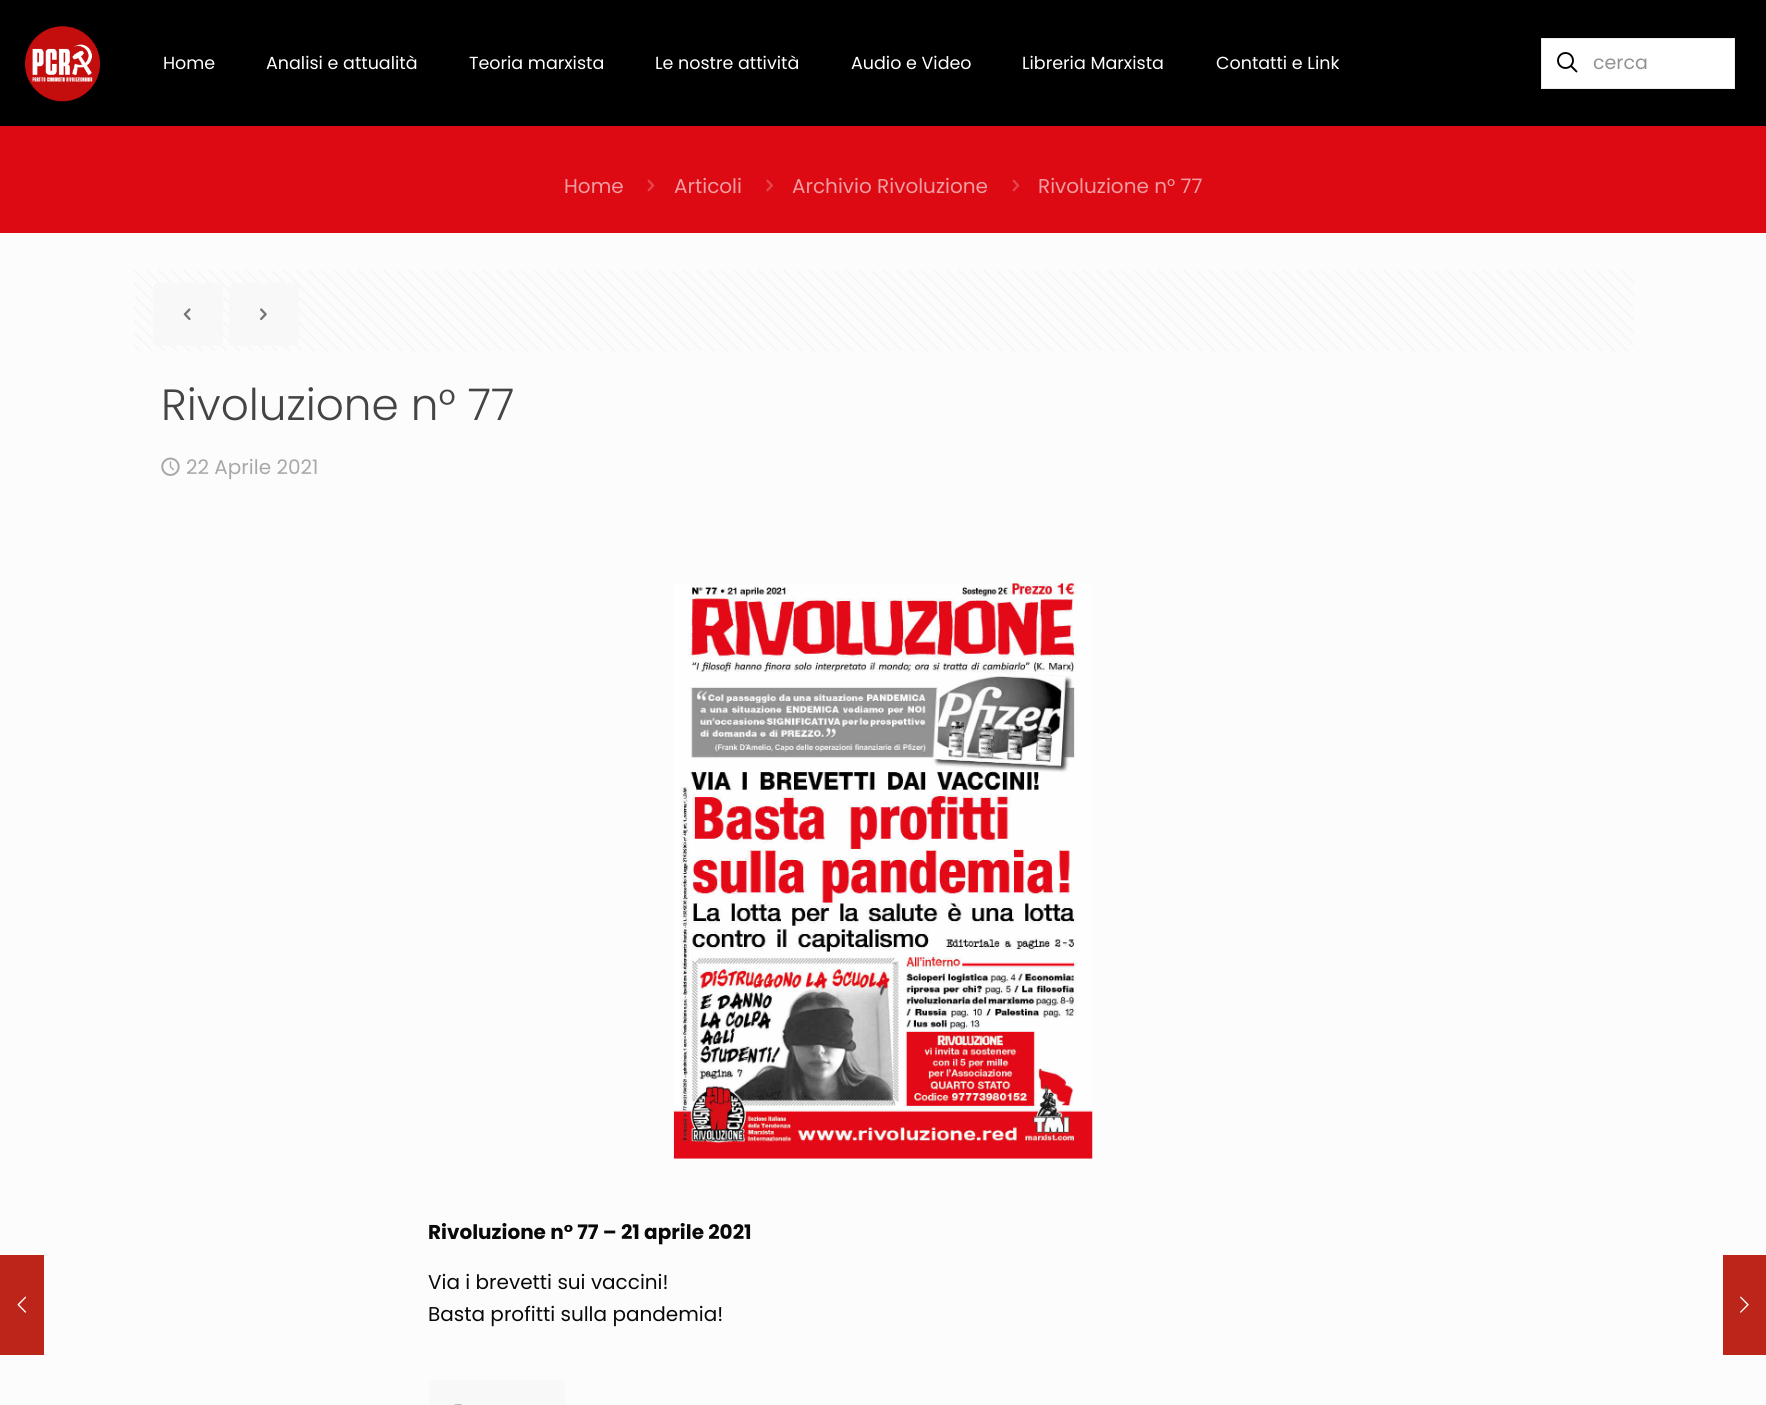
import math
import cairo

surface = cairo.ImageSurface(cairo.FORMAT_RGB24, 1766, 1405)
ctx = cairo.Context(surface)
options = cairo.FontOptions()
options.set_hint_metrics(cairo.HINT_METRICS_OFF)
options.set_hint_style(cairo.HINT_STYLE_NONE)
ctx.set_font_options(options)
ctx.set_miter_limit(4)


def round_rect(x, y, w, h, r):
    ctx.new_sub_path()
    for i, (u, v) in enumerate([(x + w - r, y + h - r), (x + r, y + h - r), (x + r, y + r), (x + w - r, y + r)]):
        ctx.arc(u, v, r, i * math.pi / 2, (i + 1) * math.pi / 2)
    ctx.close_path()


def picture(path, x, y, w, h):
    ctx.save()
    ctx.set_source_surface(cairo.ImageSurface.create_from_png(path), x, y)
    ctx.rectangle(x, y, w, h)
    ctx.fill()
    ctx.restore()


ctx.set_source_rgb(0.988, 0.988, 0.988)
ctx.paint()
ctx.set_source_rgb(0.737, 0.145, 0.098)
ctx.rectangle(0, 1255, 44, 100)
ctx.fill()
picture("img1.png", 17, 1296, 10, 17)
ctx.set_source_rgb(0, 0, 0)
ctx.rectangle(0, 0, 1766, 126)
ctx.fill()
picture("img2.png", 25, 26, 75, 76)
ctx.select_font_face("Poppins")
ctx.set_font_size(17.5)
ctx.set_source_rgb(1, 1, 1)
ctx.move_to(163, 69)
ctx.show_text("Home")
ctx.move_to(266, 69)
ctx.show_text("Analisi e attualità")
ctx.move_to(469, 69)
ctx.show_text("Teoria marxista")
ctx.move_to(655, 69)
ctx.show_text("Le nostre attività")
ctx.move_to(851, 69)
ctx.show_text("Audio e Video")
ctx.move_to(1022, 69)
ctx.show_text("Libreria Marxista")
ctx.move_to(1216, 69)
ctx.show_text("Contatti e Link")
ctx.rectangle(1541.5, 38.5, 193, 50)
ctx.fill_preserve()
ctx.set_source_rgb(0.922, 0.922, 0.922)
ctx.set_line_width(1)
ctx.stroke()
ctx.arc(1565.5, 60.5, 7.5, 0, 2 * math.pi)
ctx.set_source_rgb(0, 0, 0)
ctx.set_line_width(1.9)
ctx.stroke()
ctx.new_path()
ctx.move_to(1570.5, 65.5)
ctx.line_to(1577, 72)
ctx.stroke()
ctx.set_font_size(19)
ctx.set_source_rgb(0.573, 0.573, 0.573)
ctx.move_to(1593, 69)
ctx.show_text("cerca")
ctx.set_source_rgb(0.867, 0.039, 0.078)
ctx.rectangle(0, 126, 1766, 107)
ctx.fill()
ctx.set_font_size(20)
ctx.set_source_rgb(0.945, 0.616, 0.631)
ctx.move_to(564, 193)
ctx.show_text("Home")
picture("img3.png", 647, 179, 8, 13)
ctx.move_to(674, 193)
ctx.show_text("Articoli")
picture("img4.png", 766, 179, 7, 13)
ctx.move_to(792, 193)
ctx.show_text("Archivio Rivoluzione")
picture("img3.png", 1012, 179, 8, 13)
ctx.move_to(1038, 193)
ctx.show_text("Rivoluzione n° 77")
picture("img5.png", 134, 270, 1500, 81)
ctx.set_source_rgb(0.969, 0.969, 0.969)
round_rect(153, 283, 70, 63, 6)
ctx.fill()
picture("img6.png", 183, 308, 8, 12)
round_rect(229, 283, 70, 63, 6)
ctx.fill()
picture("img7.png", 260, 308, 7, 12)
ctx.select_font_face("Poppins Light")
ctx.set_font_size(43.75)
ctx.set_source_rgb(0.267, 0.267, 0.267)
ctx.move_to(161, 420)
ctx.show_text("Rivoluzione n° 77")
picture("img8.png", 161, 457, 19, 19)
ctx.select_font_face("Poppins")
ctx.set_font_size(20)
ctx.set_source_rgb(0.659, 0.659, 0.659)
ctx.move_to(186, 474)
ctx.show_text("22 Aprile 2021")
picture("img9.png", 673, 583, 420, 576)
ctx.select_font_face("Poppins", cairo.FONT_SLANT_NORMAL, cairo.FONT_WEIGHT_BOLD)
ctx.set_source_rgb(0.039, 0.039, 0.039)
ctx.move_to(428, 1239)
ctx.show_text("Rivoluzione n° 77 – 21 aprile 2021")
ctx.select_font_face("Poppins")
ctx.move_to(428, 1289)
ctx.show_text("Via i brevetti sui vaccini!")
ctx.move_to(428, 1321)
ctx.show_text("Basta profitti sulla pandemia!")
ctx.set_source_rgb(0.969, 0.969, 0.969)
round_rect(429, 1380, 136, 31, 6)
ctx.fill()
picture("img10.png", 454, 1404, 8, 1)
ctx.set_source_rgb(0.737, 0.145, 0.098)
ctx.rectangle(1723, 1255, 43, 100)
ctx.fill()
picture("img11.png", 1740, 1296, 9, 17)
surface.write_to_png("page.png")
